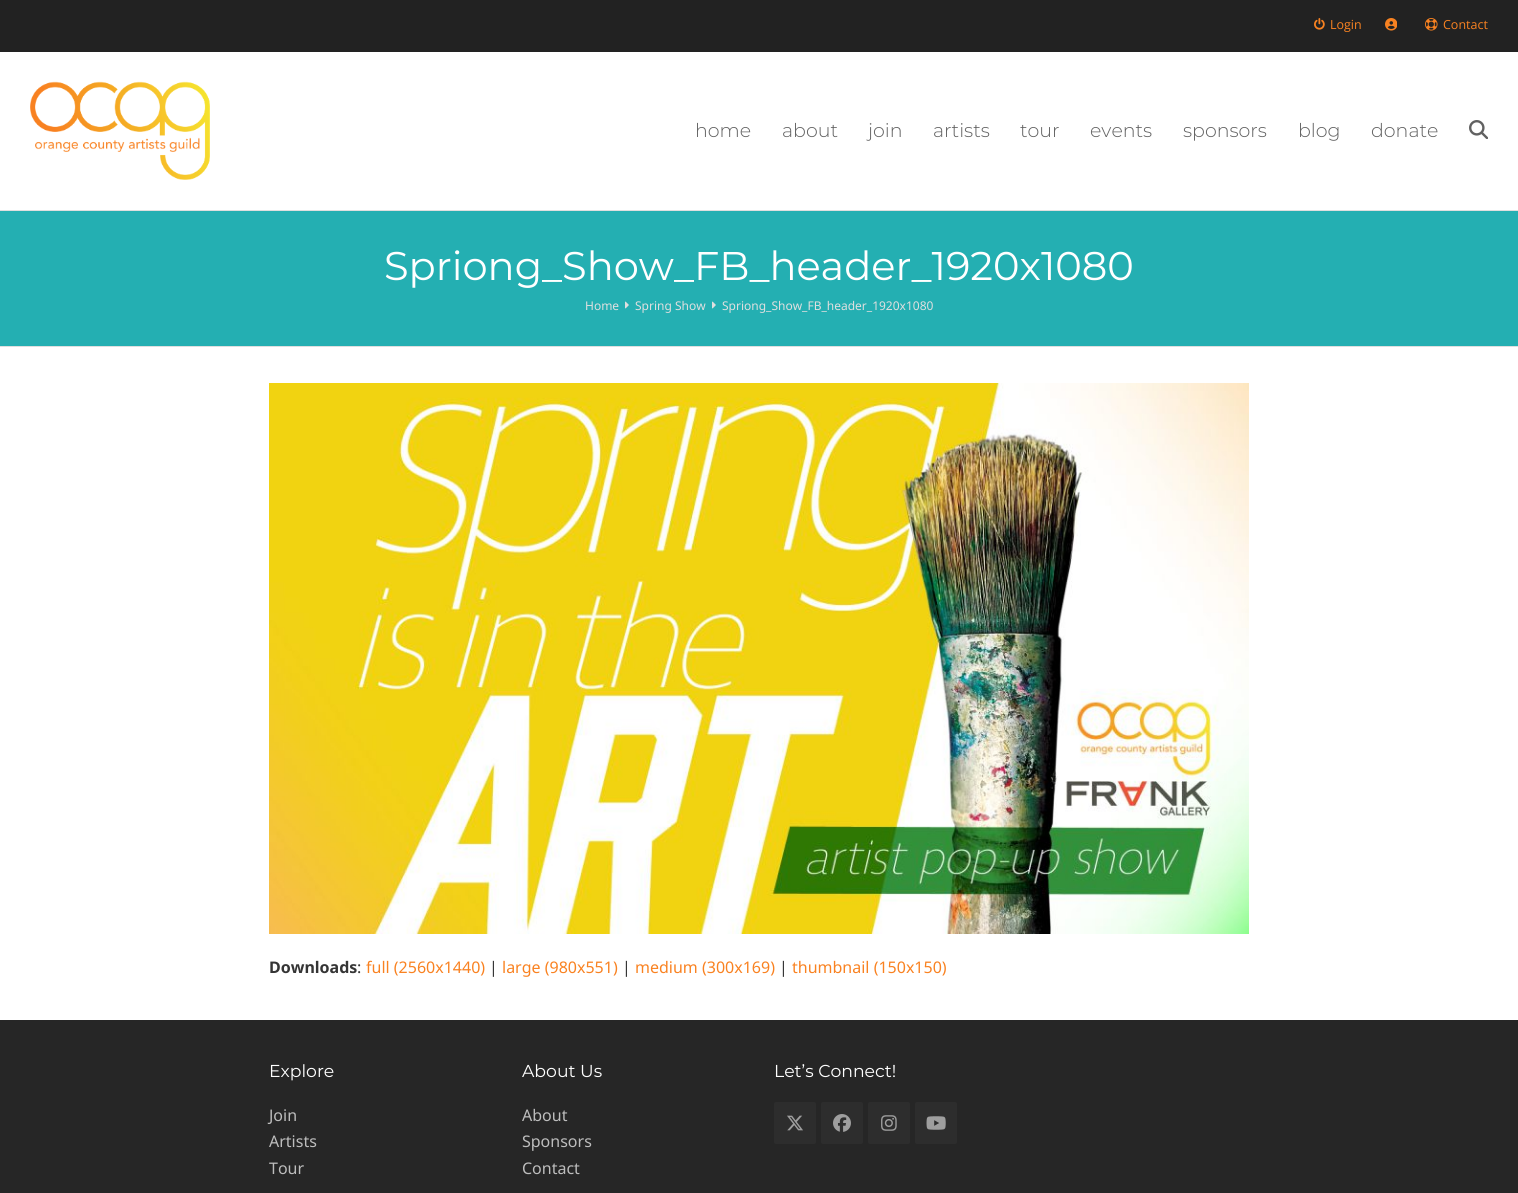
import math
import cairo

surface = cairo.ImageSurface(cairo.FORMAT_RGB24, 1518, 1193)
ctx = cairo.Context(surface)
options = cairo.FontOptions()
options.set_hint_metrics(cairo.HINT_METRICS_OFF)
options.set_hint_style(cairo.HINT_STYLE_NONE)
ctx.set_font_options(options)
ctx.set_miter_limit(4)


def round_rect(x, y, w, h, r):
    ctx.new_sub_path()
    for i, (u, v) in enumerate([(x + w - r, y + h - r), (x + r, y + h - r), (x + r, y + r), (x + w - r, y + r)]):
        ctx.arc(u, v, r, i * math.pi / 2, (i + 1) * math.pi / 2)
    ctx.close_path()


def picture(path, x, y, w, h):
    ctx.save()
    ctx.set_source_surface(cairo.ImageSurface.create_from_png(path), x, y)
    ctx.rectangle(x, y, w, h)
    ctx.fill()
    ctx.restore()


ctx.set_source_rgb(1, 1, 1)
ctx.paint()
ctx.set_source_rgb(0.133, 0.133, 0.133)
ctx.rectangle(0, 0, 1518, 52)
ctx.fill()
picture("img1.png", 1314, 18, 11, 12)
ctx.select_font_face("Open Sans")
ctx.set_font_size(12.5)
ctx.set_source_rgb(0.973, 0.51, 0.129)
ctx.move_to(1330, 29)
ctx.show_text("Login")
picture("img2.png", 1385, 18, 12, 13)
picture("img3.png", 1425, 18, 13, 13)
ctx.move_to(1443, 29)
ctx.show_text("Contact")
picture("img4.png", 30, 81, 180, 99)
ctx.select_font_face("Montserrat Light")
ctx.set_font_size(19)
ctx.set_source_rgb(0.38, 0.38, 0.38)
ctx.move_to(695, 137)
ctx.show_text("home")
ctx.move_to(782, 137)
ctx.show_text("about")
ctx.move_to(868, 137)
ctx.show_text("join")
ctx.move_to(933, 137)
ctx.show_text("artists")
ctx.move_to(1020, 137)
ctx.show_text("tour")
ctx.move_to(1090, 137)
ctx.show_text("events")
ctx.move_to(1183, 137)
ctx.show_text("sponsors")
ctx.move_to(1298, 137)
ctx.show_text("blog")
ctx.move_to(1371, 137)
ctx.show_text("donate")
picture("img5.png", 1469, 120, 19, 19)
ctx.set_source_rgb(0.141, 0.686, 0.698)
ctx.rectangle(0, 211, 1518, 135)
ctx.fill()
ctx.set_source_rgb(0.875, 0.875, 0.875)
ctx.rectangle(0, 210, 1518, 1)
ctx.fill()
ctx.rectangle(0, 346, 1518, 1)
ctx.fill()
ctx.select_font_face("Montserrat")
ctx.set_font_size(40)
ctx.set_source_rgb(1, 1, 1)
ctx.move_to(384, 280)
ctx.show_text("Spriong_Show_FB_header_1920x1080")
ctx.select_font_face("Noto Sans")
ctx.set_font_size(12)
ctx.set_source_rgb(0.875, 0.875, 0.875)
ctx.move_to(585, 310)
ctx.show_text("Home")
picture("img6.png", 625, 301, 4, 8)
ctx.move_to(635, 310)
ctx.show_text("Spring Show")
picture("img6.png", 712, 301, 4, 8)
ctx.move_to(722, 310)
ctx.show_text("Spriong_Show_FB_header_1920x1080")
picture("img7.png", 269, 383, 980, 551)
ctx.select_font_face("Noto Sans", cairo.FONT_SLANT_NORMAL, cairo.FONT_WEIGHT_BOLD)
ctx.set_font_size(16)
ctx.set_source_rgb(0.208, 0.208, 0.208)
ctx.move_to(269, 973)
ctx.show_text("Downloads")
ctx.select_font_face("Noto Sans")
ctx.move_to(357, 973)
ctx.show_text(":")
ctx.set_source_rgb(0.973, 0.51, 0.129)
ctx.move_to(366, 973)
ctx.show_text("full (2560x1440)")
ctx.set_source_rgb(0.208, 0.208, 0.208)
ctx.move_to(489, 973)
ctx.show_text("|")
ctx.set_source_rgb(0.973, 0.51, 0.129)
ctx.move_to(502, 973)
ctx.show_text("large (980x551)")
ctx.set_source_rgb(0.208, 0.208, 0.208)
ctx.move_to(622, 973)
ctx.show_text("|")
ctx.set_source_rgb(0.973, 0.51, 0.129)
ctx.move_to(635, 973)
ctx.show_text("medium (300x169)")
ctx.set_source_rgb(0.208, 0.208, 0.208)
ctx.move_to(779, 973)
ctx.show_text("|")
ctx.set_source_rgb(0.973, 0.51, 0.129)
ctx.move_to(792, 973)
ctx.show_text("thumbnail (150x150)")
ctx.set_source_rgb(0.149, 0.149, 0.149)
ctx.rectangle(0, 1020, 1518, 173)
ctx.fill()
ctx.select_font_face("Montserrat")
ctx.set_font_size(17.25)
ctx.set_source_rgb(1, 1, 1)
ctx.move_to(269, 1077)
ctx.show_text("Explore")
ctx.select_font_face("Noto Sans")
ctx.set_font_size(16)
ctx.set_source_rgb(0.741, 0.741, 0.741)
ctx.move_to(269, 1121)
ctx.show_text("Join")
ctx.move_to(269, 1147)
ctx.show_text("Artists")
ctx.move_to(269, 1174)
ctx.show_text("Tour")
ctx.select_font_face("Montserrat")
ctx.set_font_size(17.25)
ctx.set_source_rgb(1, 1, 1)
ctx.move_to(522, 1077)
ctx.show_text("About Us")
ctx.select_font_face("Noto Sans")
ctx.set_font_size(16)
ctx.set_source_rgb(0.741, 0.741, 0.741)
ctx.move_to(522, 1121)
ctx.show_text("About")
ctx.move_to(522, 1147)
ctx.show_text("Sponsors")
ctx.move_to(522, 1174)
ctx.show_text("Contact")
ctx.select_font_face("Montserrat")
ctx.set_font_size(17.25)
ctx.set_source_rgb(1, 1, 1)
ctx.move_to(774, 1077)
ctx.show_text("Let’s Connect!")
ctx.set_source_rgb(0.176, 0.176, 0.176)
round_rect(774, 1102, 42, 42, 2)
ctx.fill()
picture("img8.png", 787, 1115, 16, 16)
round_rect(821, 1102, 42, 42, 2)
ctx.fill()
picture("img9.png", 833, 1114, 18, 18)
round_rect(868, 1102, 42, 42, 2)
ctx.fill()
picture("img10.png", 881, 1115, 16, 16)
round_rect(915, 1102, 42, 42, 2)
ctx.fill()
picture("img11.png", 926, 1116, 20, 14)
surface.write_to_png("page.png")
